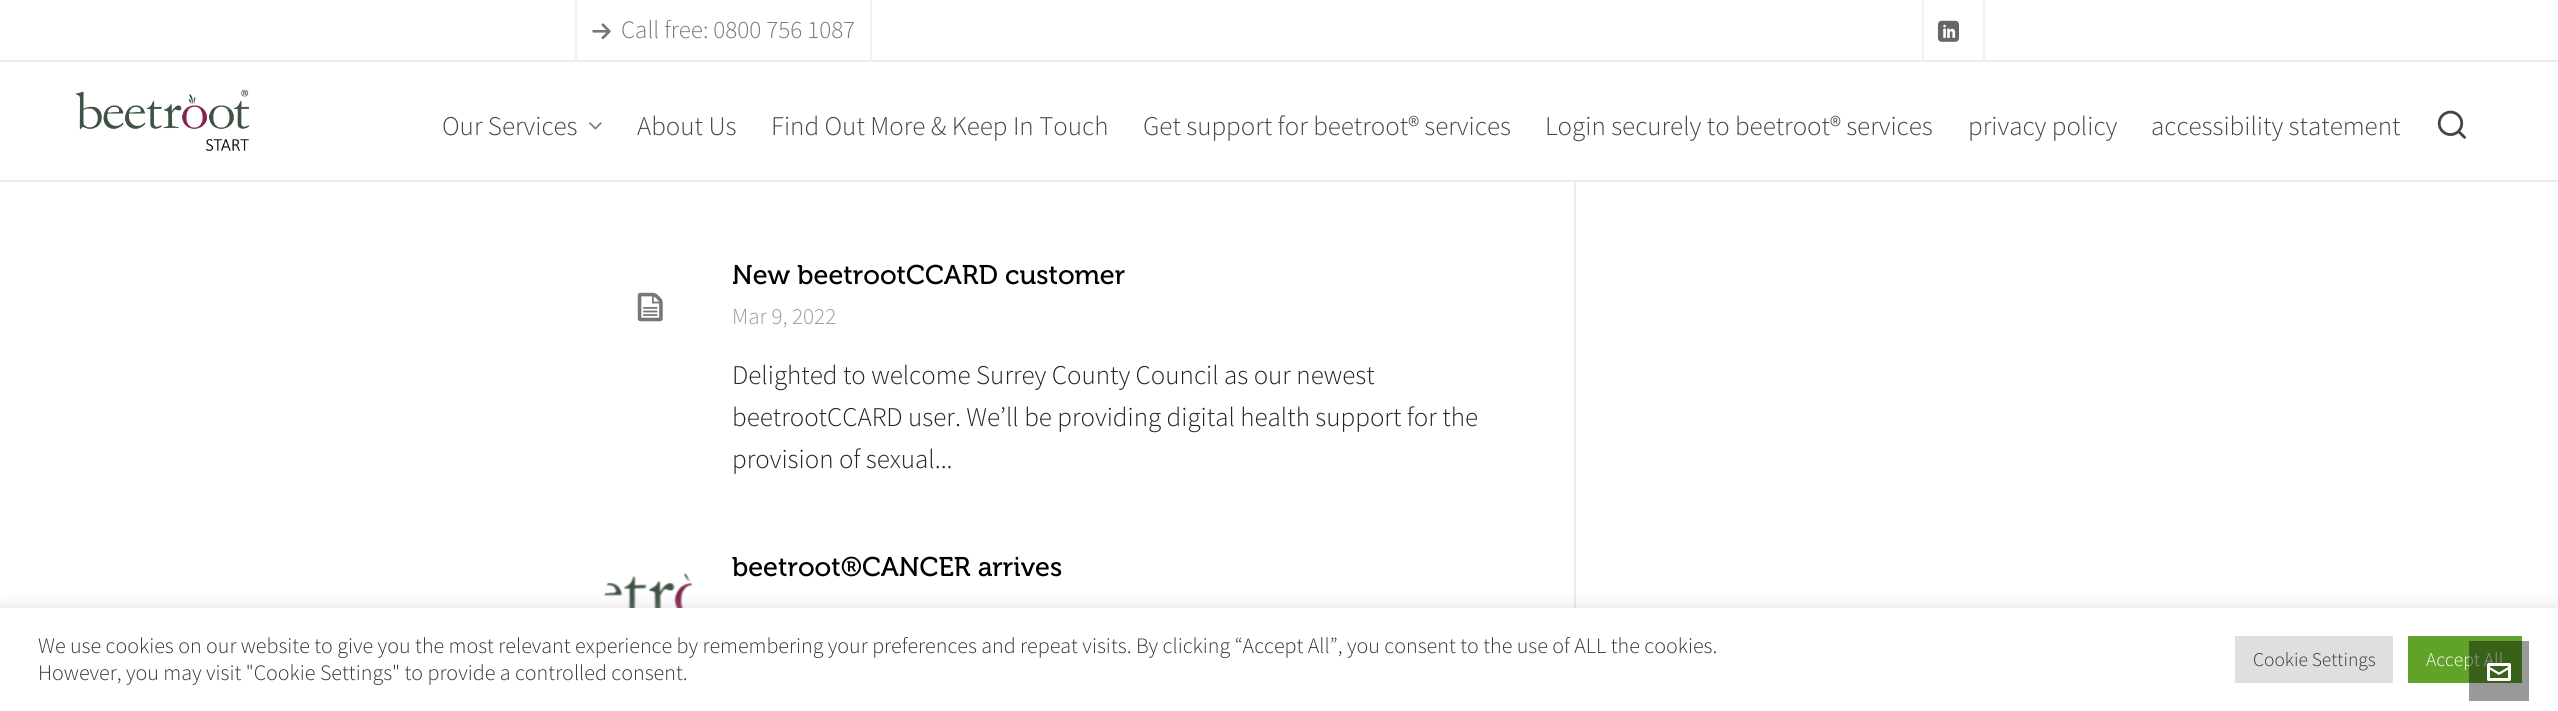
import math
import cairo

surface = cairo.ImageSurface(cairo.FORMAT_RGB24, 2558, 711)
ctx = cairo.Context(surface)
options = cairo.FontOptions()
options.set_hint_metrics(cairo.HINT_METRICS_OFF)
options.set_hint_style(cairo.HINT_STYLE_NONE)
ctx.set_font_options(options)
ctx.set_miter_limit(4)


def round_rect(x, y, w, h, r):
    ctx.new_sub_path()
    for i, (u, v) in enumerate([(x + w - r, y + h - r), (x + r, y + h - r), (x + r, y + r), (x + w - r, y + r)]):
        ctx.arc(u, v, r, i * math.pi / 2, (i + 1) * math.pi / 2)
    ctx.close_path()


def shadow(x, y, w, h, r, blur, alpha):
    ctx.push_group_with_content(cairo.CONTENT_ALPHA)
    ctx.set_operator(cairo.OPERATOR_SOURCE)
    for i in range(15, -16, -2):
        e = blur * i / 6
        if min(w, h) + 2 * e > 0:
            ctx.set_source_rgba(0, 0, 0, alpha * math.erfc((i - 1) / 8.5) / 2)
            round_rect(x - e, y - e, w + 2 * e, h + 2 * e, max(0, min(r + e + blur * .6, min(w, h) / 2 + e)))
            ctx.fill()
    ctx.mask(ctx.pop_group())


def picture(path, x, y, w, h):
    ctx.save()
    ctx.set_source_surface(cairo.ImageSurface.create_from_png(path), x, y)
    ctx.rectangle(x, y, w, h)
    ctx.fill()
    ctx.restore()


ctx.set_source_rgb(1, 1, 1)
ctx.paint()
ctx.set_source_rgb(0.922, 0.922, 0.922)
ctx.rectangle(0, 60, 2558, 2)
ctx.fill()
ctx.set_source_rgb(0.941, 0.953, 0.961)
ctx.rectangle(870, 0, 2, 62)
ctx.fill()
ctx.rectangle(575, 0, 2, 62)
ctx.fill()
picture("img1.png", 592, 23, 19, 17)
ctx.select_font_face("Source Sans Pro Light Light")
ctx.set_font_size(25)
ctx.set_source_rgb(0.467, 0.467, 0.467)
ctx.move_to(621, 38)
ctx.show_text("Call free: 0800 756 1087")
ctx.set_source_rgb(0.941, 0.953, 0.961)
ctx.rectangle(1983, 0, 2, 62)
ctx.fill()
ctx.rectangle(1922, 0, 2, 62)
ctx.fill()
picture("img2.png", 1938, 20, 21, 22)
ctx.set_source_rgb(0.922, 0.922, 0.922)
ctx.rectangle(1574, 180, 2, 428)
ctx.fill()
ctx.rectangle(0, 180, 2558, 2)
ctx.fill()
picture("img3.png", 75, 89, 175, 62)
ctx.set_font_size(27)
ctx.set_source_rgb(0.267, 0.267, 0.267)
ctx.move_to(442, 135)
ctx.show_text("Our Services")
picture("img4.png", 589, 122, 13, 8)
ctx.move_to(637, 135)
ctx.show_text("About Us")
ctx.move_to(771, 135)
ctx.show_text("Find Out More & Keep In Touch")
ctx.move_to(1143, 135)
ctx.show_text("Get support for beetroot® services")
ctx.move_to(1545, 135)
ctx.show_text("Login securely to beetroot® services")
ctx.move_to(1968, 135)
ctx.show_text("privacy policy")
ctx.move_to(2151, 135)
ctx.show_text("accessibility statement")
picture("img5.png", 2437, 110, 29, 29)
ctx.select_font_face("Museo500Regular")
ctx.set_source_rgb(0, 0, 0)
ctx.move_to(732, 284)
ctx.show_text("New beetrootCCARD customer")
picture("img6.png", 637, 292, 26, 30)
ctx.select_font_face("Source Sans Pro Light Light")
ctx.set_font_size(23)
ctx.set_source_rgb(0.6, 0.6, 0.6)
ctx.move_to(732, 324)
ctx.show_text("Mar 9, 2022")
ctx.set_font_size(27)
ctx.set_source_rgb(0.133, 0.133, 0.133)
ctx.move_to(732, 384)
ctx.show_text("Delighted to welcome Surrey County Council as our newest")
ctx.move_to(732, 426)
ctx.show_text("beetrootCCARD user. We’ll be providing digital health support for the")
ctx.move_to(732, 468)
ctx.show_text("provision of sexual...")
ctx.select_font_face("Museo500Regular")
ctx.set_source_rgb(0, 0, 0)
ctx.move_to(732, 576)
ctx.show_text("beetroot®CANCER arrives")
picture("img7.png", 604, 573, 89, 35)
ctx.set_source_rgb(0.675, 0.671, 0.671)
shadow(0, 606, 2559, 104, 0, 7.5, 0.3)
ctx.set_source_rgb(1, 1, 1)
ctx.rectangle(0, 608, 2558, 103)
ctx.fill()
ctx.set_source_rgb(0.38, 0.635, 0.161)
ctx.rectangle(2408, 636, 114, 47)
ctx.fill()
ctx.select_font_face("Source Sans Pro Light Light")
ctx.set_font_size(19.5)
ctx.set_source_rgb(1, 1, 1)
ctx.move_to(2426, 666)
ctx.show_text("Accept All")
ctx.set_source_rgba(0, 0, 0, 0.4)
ctx.rectangle(2469, 641, 60, 60)
ctx.fill()
picture("img8.png", 2487, 663, 24, 18)
ctx.set_font_size(22)
ctx.set_source_rgb(0.2, 0.2, 0.2)
ctx.move_to(38, 653)
ctx.show_text("We use cookies on our website to give you the most relevant experience by remembering your preferences and repeat visits. By clicking “Accept All”, you consent to the use of ALL the cookies.")
ctx.move_to(38, 680)
ctx.show_text("However, you may visit \"Cookie Settings\" to provide a controlled consent.")
ctx.set_source_rgb(0.871, 0.875, 0.878)
ctx.rectangle(2235, 636, 158, 47)
ctx.fill()
ctx.set_font_size(19.5)
ctx.set_source_rgb(0.2, 0.2, 0.2)
ctx.move_to(2253, 666)
ctx.show_text("Cookie Settings")
surface.write_to_png("page.png")
